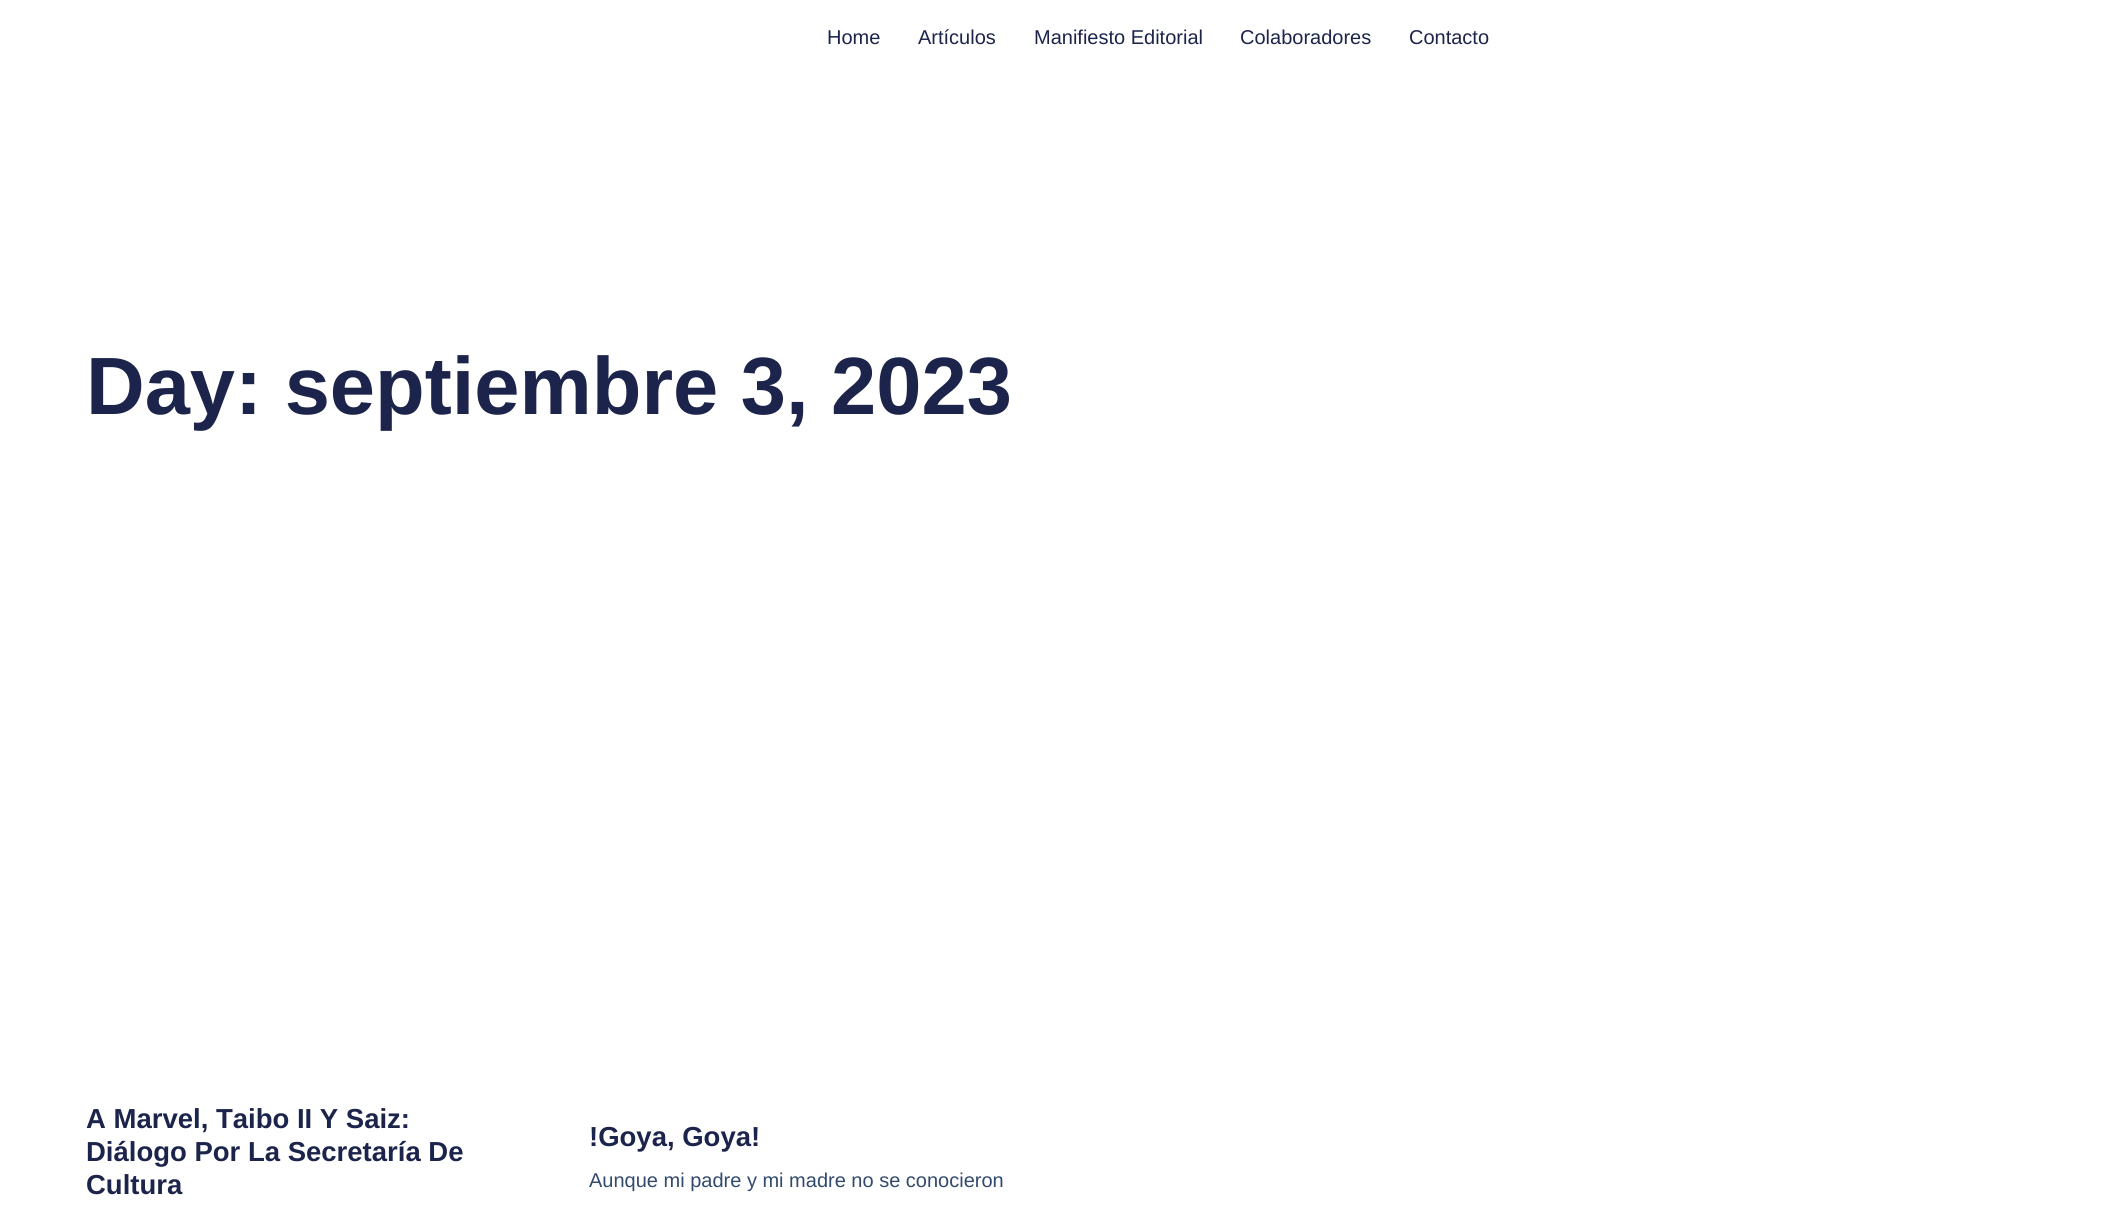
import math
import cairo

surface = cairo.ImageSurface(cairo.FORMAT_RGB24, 2109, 1208)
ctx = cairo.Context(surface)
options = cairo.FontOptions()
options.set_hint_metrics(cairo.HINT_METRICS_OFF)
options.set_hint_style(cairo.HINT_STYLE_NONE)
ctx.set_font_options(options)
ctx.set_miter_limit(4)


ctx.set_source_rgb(1, 1, 1)
ctx.paint()
ctx.select_font_face("Liberation Sans")
ctx.set_font_size(20)
ctx.set_source_rgb(0.11, 0.141, 0.294)
ctx.move_to(827, 44)
ctx.show_text("Home")
ctx.move_to(918, 44)
ctx.show_text("Artículos")
ctx.move_to(1034, 44)
ctx.show_text("Manifiesto Editorial")
ctx.move_to(1240, 44)
ctx.show_text("Colaboradores")
ctx.move_to(1409, 44)
ctx.show_text("Contacto")
ctx.select_font_face("Liberation Sans", cairo.FONT_SLANT_NORMAL, cairo.FONT_WEIGHT_BOLD)
ctx.set_font_size(81.25)
ctx.move_to(86, 414)
ctx.show_text("Day: septiembre 3, 2023")
ctx.set_font_size(27.5)
ctx.move_to(86, 1128)
ctx.show_text("A Marvel, Taibo II Y Saiz:")
ctx.move_to(86, 1161)
ctx.show_text("Diálogo Por La Secretaría De")
ctx.move_to(86, 1194)
ctx.show_text("Cultura")
ctx.move_to(589, 1146)
ctx.show_text("!Goya, Goya!")
ctx.select_font_face("Liberation Sans")
ctx.set_font_size(20)
ctx.set_source_rgb(0.196, 0.29, 0.427)
ctx.move_to(589, 1187)
ctx.show_text("Aunque mi padre y mi madre no se conocieron")
surface.write_to_png("page.png")
